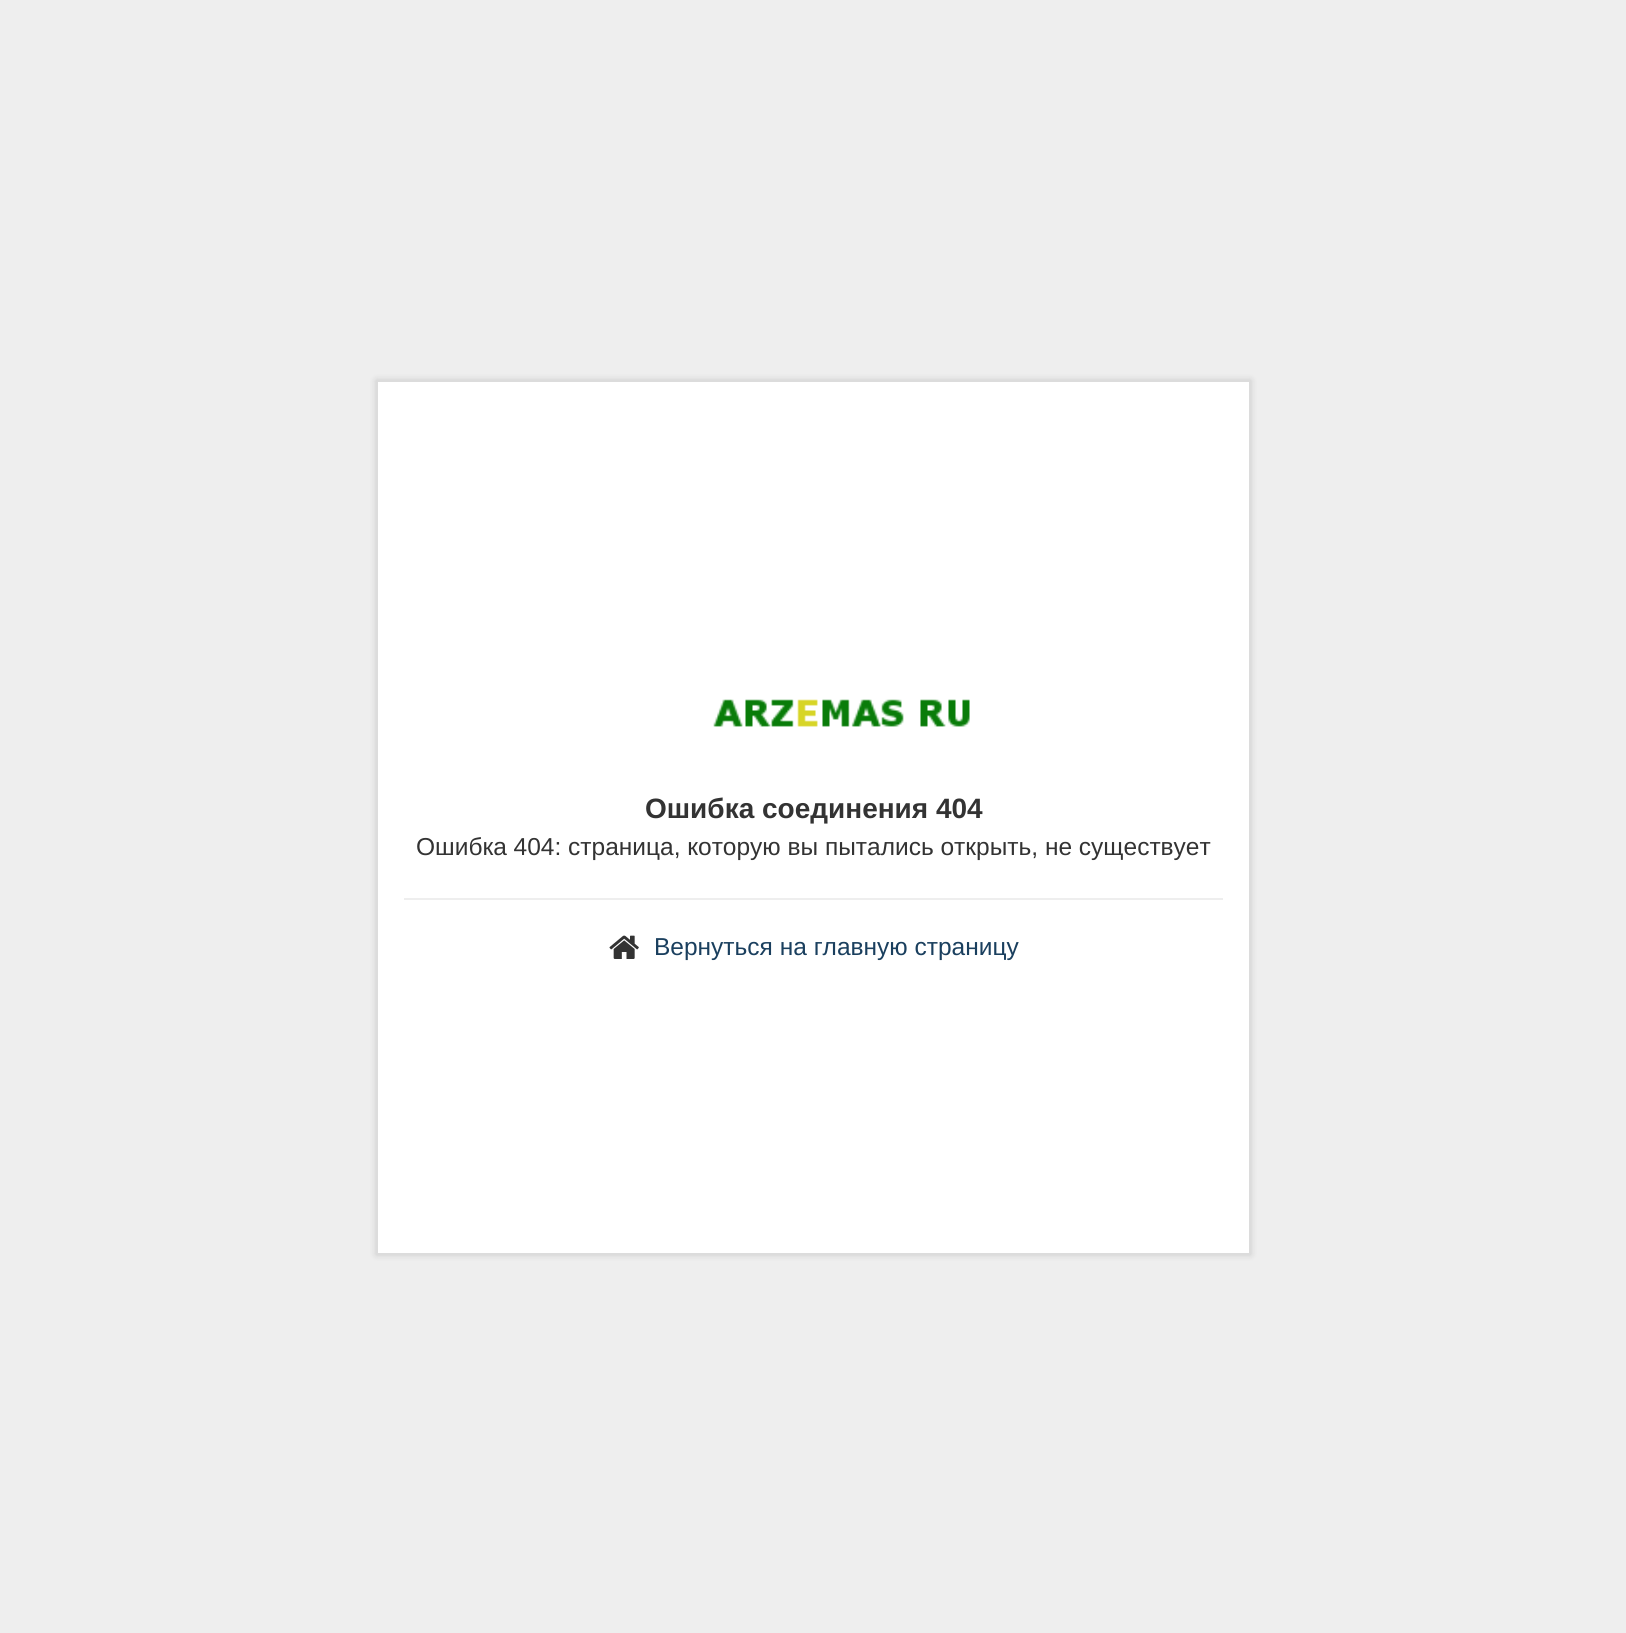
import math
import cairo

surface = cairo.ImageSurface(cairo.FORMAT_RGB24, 1626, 1633)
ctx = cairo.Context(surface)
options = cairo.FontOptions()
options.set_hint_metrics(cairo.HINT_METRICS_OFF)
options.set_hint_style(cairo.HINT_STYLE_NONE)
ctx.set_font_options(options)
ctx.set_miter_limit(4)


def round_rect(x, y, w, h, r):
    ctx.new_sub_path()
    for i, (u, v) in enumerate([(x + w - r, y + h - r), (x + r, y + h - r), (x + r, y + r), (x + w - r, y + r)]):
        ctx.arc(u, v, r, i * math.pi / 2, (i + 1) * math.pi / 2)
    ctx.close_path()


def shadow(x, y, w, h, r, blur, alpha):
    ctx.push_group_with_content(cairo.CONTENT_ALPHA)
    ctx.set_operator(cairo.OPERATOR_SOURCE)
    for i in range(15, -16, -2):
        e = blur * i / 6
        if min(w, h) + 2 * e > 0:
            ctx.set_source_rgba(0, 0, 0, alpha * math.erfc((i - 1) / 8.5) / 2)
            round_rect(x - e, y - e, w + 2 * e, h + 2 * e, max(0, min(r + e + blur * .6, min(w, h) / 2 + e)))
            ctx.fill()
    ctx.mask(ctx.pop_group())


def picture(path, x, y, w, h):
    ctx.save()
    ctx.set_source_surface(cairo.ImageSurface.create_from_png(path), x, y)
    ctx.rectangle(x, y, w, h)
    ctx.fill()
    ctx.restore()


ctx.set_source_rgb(0.933, 0.933, 0.933)
ctx.paint()
ctx.set_source_rgb(0, 0, 0)
shadow(376, 380, 875, 875, 0, 3.5, 0.15)
ctx.set_source_rgb(1, 1, 1)
ctx.rectangle(377, 381, 873, 873)
ctx.fill_preserve()
ctx.set_source_rgb(0.863, 0.863, 0.863)
ctx.stroke()
picture("img1.png", 713, 699, 257, 28)
ctx.select_font_face("Liberation Sans", cairo.FONT_SLANT_NORMAL, cairo.FONT_WEIGHT_BOLD)
ctx.set_font_size(28)
ctx.set_source_rgb(0.2, 0.2, 0.2)
ctx.move_to(645, 818)
ctx.show_text("Ошибка соединения 404")
ctx.select_font_face("Liberation Sans")
ctx.set_font_size(24.5)
ctx.move_to(416, 855)
ctx.show_text("Ошибка 404: страница, которую вы пытались открыть, не существует")
ctx.set_source_rgb(0.933, 0.933, 0.933)
ctx.rectangle(404, 898, 819, 2)
ctx.fill()
picture("img2.png", 609, 935, 30, 24)
ctx.set_source_rgb(0.102, 0.247, 0.369)
ctx.move_to(654, 955)
ctx.show_text("Вернуться на главную страницу")
surface.write_to_png("page.png")
